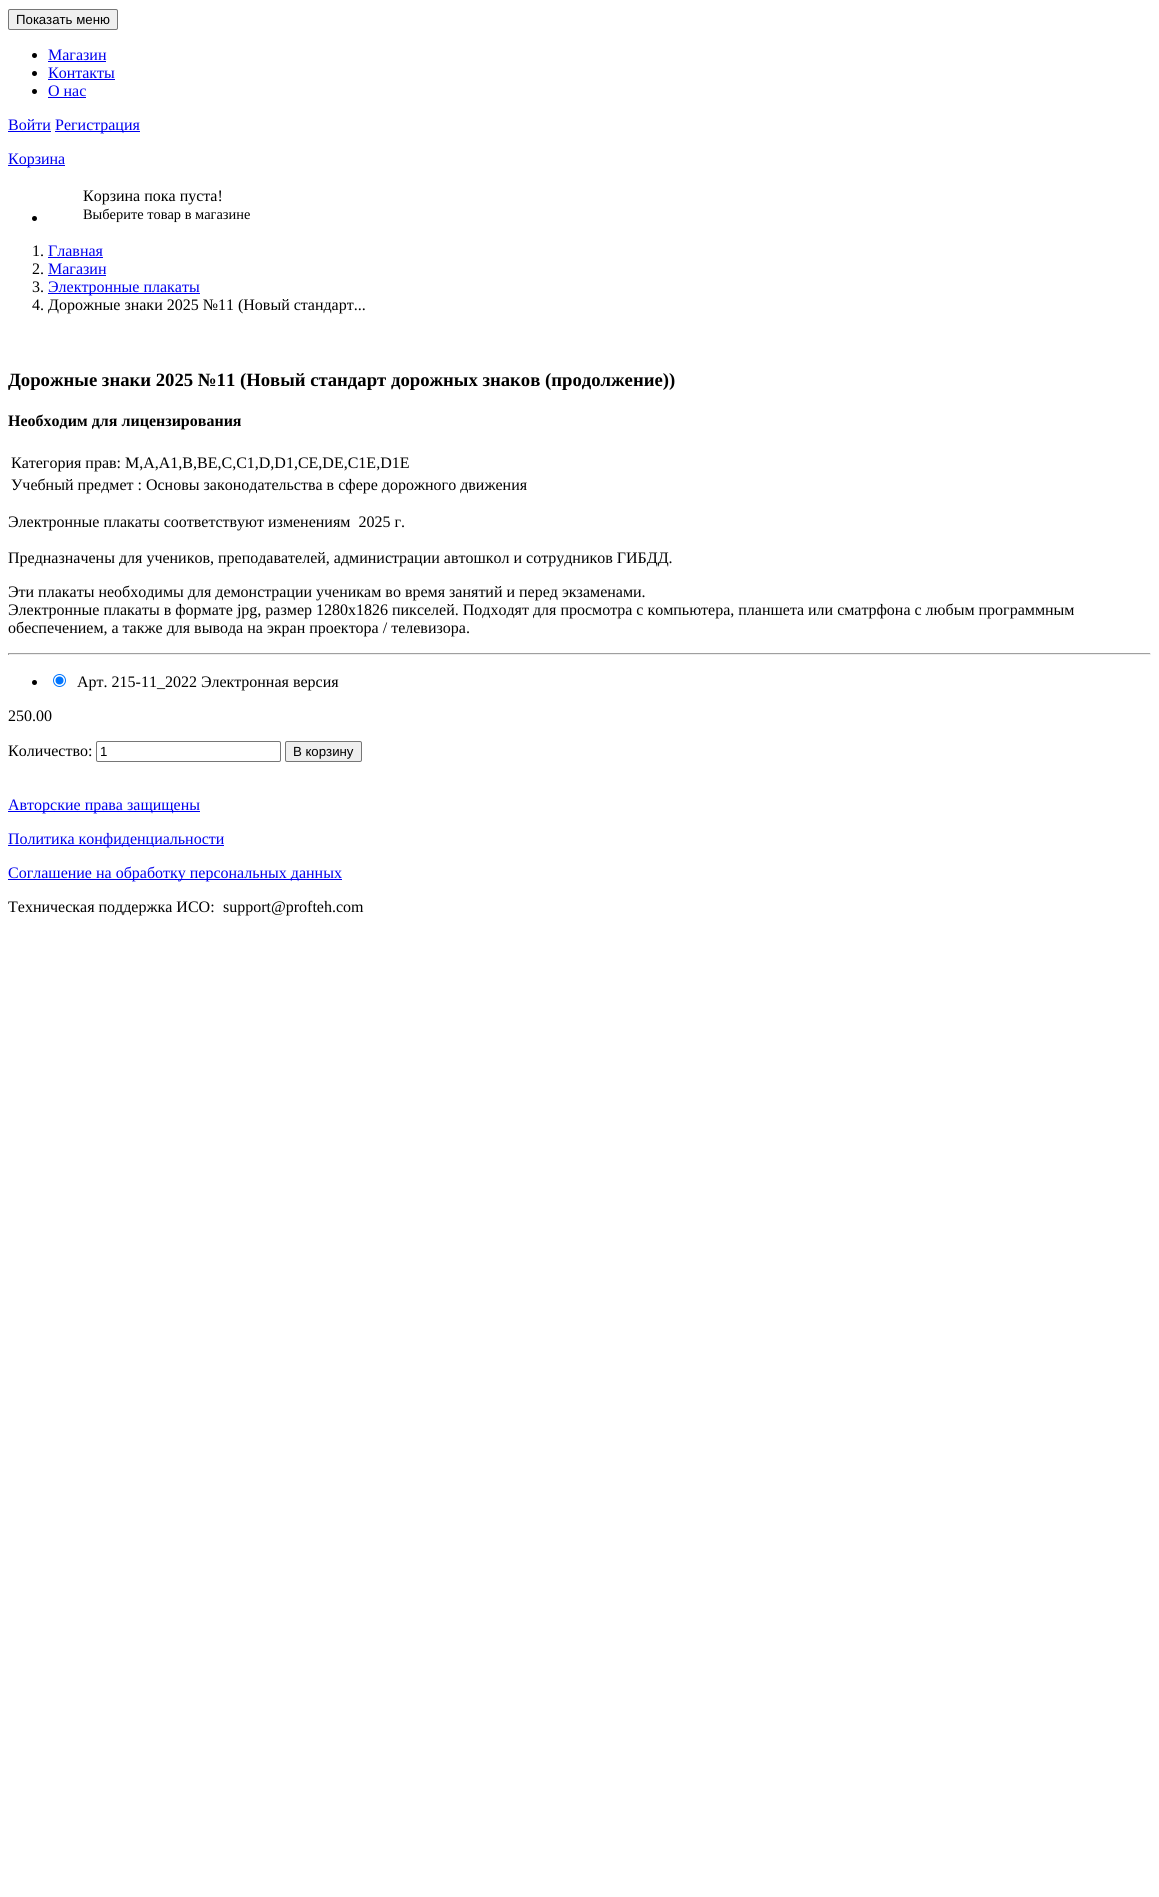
import math
import cairo

surface = cairo.ImageSurface(cairo.FORMAT_RGB24, 1159, 1897)
ctx = cairo.Context(surface)
options = cairo.FontOptions()
options.set_hint_metrics(cairo.HINT_METRICS_OFF)
options.set_hint_style(cairo.HINT_STYLE_NONE)
ctx.set_font_options(options)
ctx.set_miter_limit(4)


def round_rect(x, y, w, h, r):
    ctx.new_sub_path()
    for i, (u, v) in enumerate([(x + w - r, y + h - r), (x + r, y + h - r), (x + r, y + r), (x + w - r, y + r)]):
        ctx.arc(u, v, r, i * math.pi / 2, (i + 1) * math.pi / 2)
    ctx.close_path()


ctx.set_source_rgb(1, 1, 1)
ctx.paint()
ctx.set_source_rgb(0.937, 0.937, 0.937)
round_rect(8.5, 9.5, 109, 20, 1.5)
ctx.fill_preserve()
ctx.set_source_rgb(0.463, 0.463, 0.463)
ctx.set_line_width(1)
ctx.stroke()
ctx.select_font_face("Liberation Sans")
ctx.set_font_size(13.25)
ctx.set_source_rgb(0, 0, 0)
ctx.move_to(16, 24)
ctx.show_text("Показать меню")
ctx.new_path()
ctx.arc(34.5, 55.5, 2.5, 0, 2 * math.pi)
ctx.fill()
ctx.select_font_face("Liberation Serif")
ctx.set_font_size(16)
ctx.set_source_rgb(0, 0, 0.933)
ctx.move_to(48, 60)
ctx.show_text("Магазин")
ctx.rectangle(48, 61, 58, 1)
ctx.fill()
ctx.set_source_rgb(0, 0, 0)
ctx.arc(34.5, 73.5, 2.5, 0, 2 * math.pi)
ctx.fill()
ctx.set_source_rgb(0, 0, 0.933)
ctx.move_to(48, 78)
ctx.show_text("Контакты")
ctx.rectangle(48, 79, 67, 1)
ctx.fill()
ctx.set_source_rgb(0, 0, 0)
ctx.arc(34.5, 91.5, 2.5, 0, 2 * math.pi)
ctx.fill()
ctx.set_source_rgb(0, 0, 0.933)
ctx.move_to(48, 96)
ctx.show_text("О нас")
ctx.rectangle(48, 97, 38, 1)
ctx.fill()
ctx.move_to(8, 130)
ctx.show_text("Войти")
ctx.rectangle(8, 131, 43, 1)
ctx.fill()
ctx.rectangle(55, 131, 85, 1)
ctx.fill()
ctx.move_to(55, 130)
ctx.show_text("Регистрация")
ctx.rectangle(8, 165, 57, 1)
ctx.fill()
ctx.move_to(8, 164)
ctx.show_text("Корзина")
ctx.set_source_rgb(0, 0, 0)
ctx.new_path()
ctx.arc(34.5, 218.5, 2.5, 0, 2 * math.pi)
ctx.fill()
ctx.move_to(83, 201)
ctx.show_text("Корзина пока пуста!")
ctx.set_font_size(14.4)
ctx.move_to(83, 219)
ctx.show_text("Выберите товар в магазине")
ctx.set_font_size(16)
ctx.move_to(32, 256)
ctx.show_text("1.")
ctx.set_source_rgb(0, 0, 0.933)
ctx.move_to(48, 256)
ctx.show_text("Главная")
ctx.rectangle(48, 257, 55, 1)
ctx.fill()
ctx.set_source_rgb(0, 0, 0)
ctx.move_to(32, 274)
ctx.show_text("2.")
ctx.set_source_rgb(0, 0, 0.933)
ctx.move_to(48, 274)
ctx.show_text("Магазин")
ctx.rectangle(48, 275, 58, 1)
ctx.fill()
ctx.set_source_rgb(0, 0, 0)
ctx.move_to(32, 292)
ctx.show_text("3.")
ctx.set_source_rgb(0, 0, 0.933)
ctx.rectangle(48, 293, 152, 1)
ctx.fill()
ctx.move_to(48, 292)
ctx.show_text("Электронные плакаты")
ctx.set_source_rgb(0, 0, 0)
ctx.move_to(32, 310)
ctx.show_text("4. Дорожные знаки 2025 №11 (Новый стандарт...")
ctx.select_font_face("Liberation Serif", cairo.FONT_SLANT_NORMAL, cairo.FONT_WEIGHT_BOLD)
ctx.set_font_size(18.7)
ctx.move_to(8, 386)
ctx.show_text("Дорожные знаки 2025 №11 (Новый стандарт дорожных знаков (продолжение))")
ctx.set_font_size(16)
ctx.move_to(8, 426)
ctx.show_text("Необходим для лицензирования")
ctx.select_font_face("Liberation Serif")
ctx.move_to(11, 468)
ctx.show_text("Категория прав: M,А,А1,В,ВE,С,С1,D,D1,CE,DE,C1E,D1E")
ctx.move_to(11, 490)
ctx.show_text("Учебный предмет : Основы законодательства в сфере дорожного движения")
ctx.move_to(8, 527)
ctx.show_text("Электронные плакаты соответствуют изменениям  2025 г.")
ctx.move_to(8, 563)
ctx.show_text("Предназначены для учеников, преподавателей, администрации автошкол и сотрудников ГИБДД.")
ctx.move_to(8, 597)
ctx.show_text("Эти плакаты необходимы для демонстрации ученикам во время занятий и перед экзаменами.")
ctx.move_to(8, 615)
ctx.show_text("Электронные плакаты в формате jpg, размер 1280х1826 пикселей. Подходят для просмотра с компьютера, планшета или сматрфона с любым программным")
ctx.move_to(8, 633)
ctx.show_text("обеспечением, а также для вывода на экран проектора / телевизора.")
ctx.set_source_rgb(0.624, 0.624, 0.624)
ctx.rectangle(8, 653, 1143, 1)
ctx.fill()
ctx.set_source_rgb(0.933, 0.933, 0.933)
ctx.rectangle(1150, 653, 1, 2)
ctx.fill()
ctx.rectangle(8, 654, 1143, 1)
ctx.fill()
ctx.set_source_rgb(0.624, 0.624, 0.624)
ctx.rectangle(8, 653, 1, 2)
ctx.fill()
ctx.set_source_rgb(0, 0, 0)
ctx.arc(34.5, 682.5, 2.5, 0, 2 * math.pi)
ctx.fill()
ctx.arc(59.5, 680.5, 6, 0, 2 * math.pi)
ctx.set_source_rgb(0, 0.459, 1)
ctx.stroke()
ctx.arc(59.5, 680.5, 4, 0, 2 * math.pi)
ctx.fill()
ctx.set_source_rgb(0, 0, 0)
ctx.move_to(77, 687)
ctx.show_text("Арт. 215-11_2022 Электронная версия")
ctx.move_to(8, 721)
ctx.show_text("250.00")
ctx.move_to(8, 756)
ctx.show_text("Количество:")
round_rect(96.5, 741.5, 184, 20, 1.5)
ctx.set_source_rgb(0.463, 0.463, 0.463)
ctx.stroke()
ctx.select_font_face("Liberation Sans")
ctx.set_font_size(13.25)
ctx.set_source_rgb(0, 0, 0)
ctx.move_to(100, 756)
ctx.show_text("1")
ctx.set_source_rgb(0.937, 0.937, 0.937)
round_rect(285.5, 741.5, 76, 20, 1.5)
ctx.fill_preserve()
ctx.set_source_rgb(0.463, 0.463, 0.463)
ctx.stroke()
ctx.set_source_rgb(0, 0, 0)
ctx.move_to(293, 756)
ctx.show_text("В корзину")
ctx.set_source_rgb(0, 0, 0.933)
ctx.rectangle(8, 811, 192, 1)
ctx.fill()
ctx.select_font_face("Liberation Serif")
ctx.set_font_size(16)
ctx.move_to(8, 810)
ctx.show_text("Авторские права защищены")
ctx.rectangle(8, 845, 216, 1)
ctx.fill()
ctx.move_to(8, 844)
ctx.show_text("Политика конфиденциальности")
ctx.rectangle(8, 879, 334, 1)
ctx.fill()
ctx.move_to(8, 878)
ctx.show_text("Соглашение на обработку персональных данных")
ctx.set_source_rgb(0, 0, 0)
ctx.move_to(8, 912)
ctx.show_text("Техническая поддержка ИСО:")
ctx.move_to(223, 912)
ctx.show_text("support@profteh.com")
surface.write_to_png("page.png")
